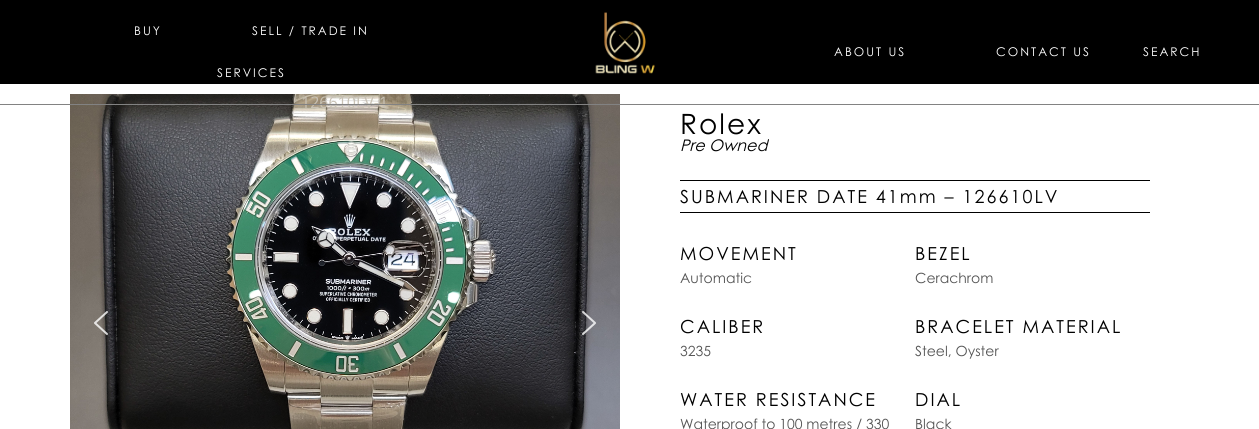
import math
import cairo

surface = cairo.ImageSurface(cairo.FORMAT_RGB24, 1259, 429)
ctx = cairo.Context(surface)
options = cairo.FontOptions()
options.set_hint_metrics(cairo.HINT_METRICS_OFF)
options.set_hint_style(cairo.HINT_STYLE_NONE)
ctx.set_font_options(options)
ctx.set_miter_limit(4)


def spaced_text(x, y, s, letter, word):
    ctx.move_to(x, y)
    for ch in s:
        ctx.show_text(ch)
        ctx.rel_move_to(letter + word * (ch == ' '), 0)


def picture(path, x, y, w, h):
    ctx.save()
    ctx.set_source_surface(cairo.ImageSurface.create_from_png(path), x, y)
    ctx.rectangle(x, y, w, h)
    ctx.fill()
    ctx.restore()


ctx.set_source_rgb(0, 0, 0)
ctx.paint()
ctx.set_source_rgb(1, 1, 1)
ctx.rectangle(0, 84, 1259, 345)
ctx.fill()
picture("img2.png", 70, 94, 550, 335)
ctx.select_font_face("Open Sans")
ctx.set_font_size(16)
ctx.set_source_rgb(0.784, 0.757, 0.706)
ctx.move_to(301, 108)
ctx.show_text("126610LV-1")
ctx.set_source_rgb(0.51, 0.51, 0.51)
ctx.rectangle(0, 104, 1259, 1)
ctx.fill()
ctx.select_font_face("Century Gothic")
ctx.set_font_size(12)
ctx.set_source_rgb(1, 1, 1)
spaced_text(134, 35, "BUY", 2, 0)
spaced_text(252, 35, "SELL / TRADE IN", 2, 0)
spaced_text(217, 77, "SERVICES", 2, 0)
picture("img1.png", 595, 12, 60, 62)
spaced_text(834, 56, "ABOUT US", 2, 0)
spaced_text(996, 56, "CONTACT US", 2, 0)
spaced_text(1143, 56, "SEARCH", 2, 0)
picture("img3.png", 94, 311, 14, 24)
picture("img4.png", 582, 311, 14, 24)
ctx.set_font_size(28)
ctx.set_source_rgb(0, 0, 0)
spaced_text(680, 134, "Rolex", 2, 0)
ctx.select_font_face("Century Gothic", cairo.FONT_SLANT_ITALIC)
ctx.set_font_size(16)
ctx.move_to(680, 151)
ctx.show_text("Pre Owned")
ctx.rectangle(680, 180, 470, 1)
ctx.fill()
ctx.select_font_face("Century Gothic")
ctx.set_font_size(18)
spaced_text(680, 203, "SUBMARINER DATE 41mm – 126610LV", 2, 0)
ctx.rectangle(680, 212, 470, 1)
ctx.fill()
spaced_text(680, 260, "MOVEMENT", 2, 0)
ctx.set_font_size(14)
ctx.set_source_rgb(0.329, 0.329, 0.329)
ctx.move_to(680, 283)
ctx.show_text("Automatic")
ctx.set_font_size(18)
ctx.set_source_rgb(0, 0, 0)
spaced_text(915, 260, "BEZEL", 2, 0)
ctx.set_font_size(14)
ctx.set_source_rgb(0.329, 0.329, 0.329)
ctx.move_to(915, 283)
ctx.show_text("Cerachrom")
ctx.set_font_size(18)
ctx.set_source_rgb(0, 0, 0)
spaced_text(680, 333, "CALIBER", 2, 0)
ctx.set_font_size(14)
ctx.set_source_rgb(0.329, 0.329, 0.329)
ctx.move_to(680, 356)
ctx.show_text("3235")
ctx.set_font_size(18)
ctx.set_source_rgb(0, 0, 0)
spaced_text(915, 333, "BRACELET MATERIAL", 2, 0)
ctx.set_font_size(14)
ctx.set_source_rgb(0.329, 0.329, 0.329)
ctx.move_to(915, 356)
ctx.show_text("Steel, Oyster")
ctx.set_font_size(18)
ctx.set_source_rgb(0, 0, 0)
spaced_text(680, 406, "WATER RESISTANCE", 2, 0)
ctx.set_font_size(14)
ctx.set_source_rgb(0.329, 0.329, 0.329)
ctx.move_to(680, 429)
ctx.show_text("Waterproof to 100 metres / 330")
ctx.set_font_size(18)
ctx.set_source_rgb(0, 0, 0)
spaced_text(915, 406, "DIAL", 2, 0)
ctx.set_font_size(14)
ctx.set_source_rgb(0.329, 0.329, 0.329)
ctx.move_to(915, 429)
ctx.show_text("Black")
surface.write_to_png("page.png")
